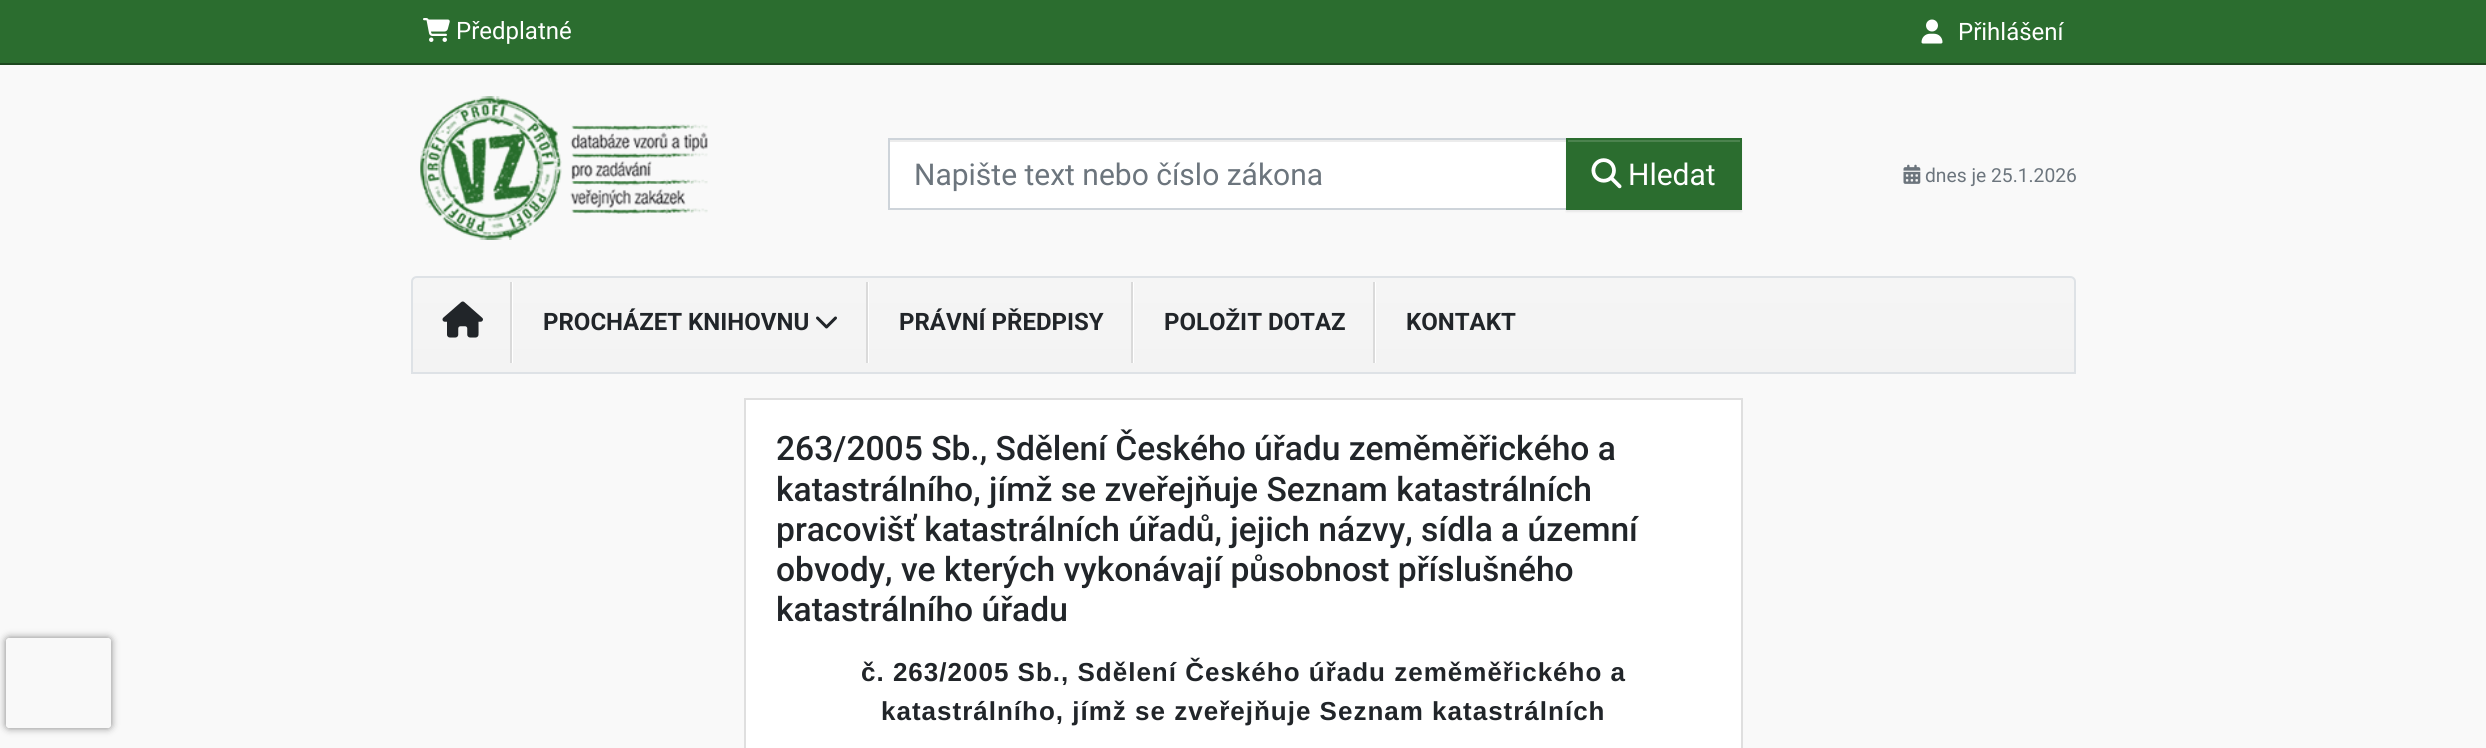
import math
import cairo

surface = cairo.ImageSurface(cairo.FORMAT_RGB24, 2486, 748)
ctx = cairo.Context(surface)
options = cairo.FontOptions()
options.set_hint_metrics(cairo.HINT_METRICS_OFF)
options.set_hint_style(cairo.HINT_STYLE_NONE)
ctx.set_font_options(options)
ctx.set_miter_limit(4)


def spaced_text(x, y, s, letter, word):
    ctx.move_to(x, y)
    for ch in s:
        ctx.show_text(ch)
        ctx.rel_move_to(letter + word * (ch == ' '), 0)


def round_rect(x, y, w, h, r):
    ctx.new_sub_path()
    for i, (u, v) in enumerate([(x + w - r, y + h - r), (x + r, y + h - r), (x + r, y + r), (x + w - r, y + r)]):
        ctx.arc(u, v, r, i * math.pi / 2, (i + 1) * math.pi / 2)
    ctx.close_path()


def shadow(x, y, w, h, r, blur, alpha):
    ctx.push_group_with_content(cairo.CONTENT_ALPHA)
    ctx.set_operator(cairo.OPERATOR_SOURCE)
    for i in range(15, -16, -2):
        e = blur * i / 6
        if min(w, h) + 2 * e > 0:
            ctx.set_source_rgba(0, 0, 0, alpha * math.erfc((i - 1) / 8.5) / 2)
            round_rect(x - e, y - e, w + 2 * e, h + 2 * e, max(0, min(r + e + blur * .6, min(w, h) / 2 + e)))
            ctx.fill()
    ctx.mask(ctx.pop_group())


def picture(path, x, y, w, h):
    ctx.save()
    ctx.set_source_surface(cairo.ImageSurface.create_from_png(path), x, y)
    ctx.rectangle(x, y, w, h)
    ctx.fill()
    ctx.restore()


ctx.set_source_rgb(0.973, 0.973, 0.973)
ctx.paint()
ctx.save()
ctx.set_fill_rule(cairo.FILL_RULE_EVEN_ODD)
ctx.new_path()
ctx.move_to(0, 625)
ctx.line_to(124, 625)
ctx.line_to(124, 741)
ctx.line_to(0, 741)
ctx.close_path()
ctx.move_to(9, 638)
ctx.line_to(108, 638)
ctx.curve_to(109.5, 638, 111, 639.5, 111, 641)
ctx.line_to(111, 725)
ctx.curve_to(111, 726.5, 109.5, 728, 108, 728)
ctx.line_to(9, 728)
ctx.curve_to(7.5, 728, 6, 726.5, 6, 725)
ctx.line_to(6, 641)
ctx.curve_to(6, 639.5, 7.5, 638, 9, 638)
ctx.close_path()
ctx.clip()
ctx.set_source_rgb(0.502, 0.502, 0.502)
shadow(6, 638, 105, 90, 3, 4, 1)
ctx.restore()
ctx.set_source_rgb(0.169, 0.427, 0.184)
ctx.rectangle(0, 0, 2486, 63)
ctx.fill()
ctx.set_source_rgb(0.114, 0.282, 0.122)
ctx.rectangle(0, 63, 2486, 2)
ctx.fill()
picture("img1.png", 423, 18, 27, 24)
ctx.select_font_face("Roboto")
ctx.set_font_size(24)
ctx.set_source_rgb(1, 1, 1)
ctx.move_to(456, 39)
ctx.show_text("Předplatné")
picture("img2.png", 1921, 19, 22, 25)
ctx.move_to(1958, 40)
ctx.show_text("Přihlášení")
picture("img3.png", 420, 96, 288, 144)
ctx.rectangle(890, 142, 676, 66)
ctx.fill()
ctx.set_source_rgb(0.925, 0.925, 0.925)
ctx.rectangle(890, 140, 676, 2)
ctx.fill()
ctx.rectangle(889, 139, 678, 70)
ctx.set_source_rgb(0.808, 0.831, 0.855)
ctx.stroke()
ctx.set_font_size(30)
ctx.set_source_rgb(0.424, 0.459, 0.49)
ctx.move_to(914, 185)
ctx.show_text("Napište text nebo číslo zákona")
ctx.set_source_rgb(0, 0, 0)
shadow(1566, 140, 176, 72, 0, 1, 0.07)
ctx.set_source_rgb(0.169, 0.427, 0.184)
ctx.rectangle(1566, 138, 176, 72)
ctx.fill()
ctx.set_source_rgb(0.294, 0.514, 0.306)
ctx.rectangle(1568, 140, 172, 2)
ctx.fill()
picture("img4.png", 1591, 158, 31, 31)
ctx.set_source_rgb(1, 1, 1)
ctx.move_to(1628, 185)
ctx.show_text("Hledat")
picture("img5.png", 1903, 164, 18, 20)
ctx.set_font_size(19.25)
ctx.set_source_rgb(0.424, 0.459, 0.49)
ctx.move_to(1925, 182)
ctx.show_text("dnes je 25.1.2026")
ctx.save()
ctx.new_path()
ctx.move_to(417, 276)
ctx.line_to(2070, 276)
ctx.curve_to(2073.5, 276, 2076, 278.5, 2076, 282)
ctx.line_to(2076, 374)
ctx.line_to(411, 374)
ctx.line_to(411, 282)
ctx.curve_to(411, 278.5, 413.5, 276, 417, 276)
ctx.close_path()
ctx.clip()
gradient = cairo.LinearGradient(1244, 277, 1244, 372)
gradient.add_color_stop_rgba(0, 0.961, 0.961, 0.961, 1)
gradient.add_color_stop_rgba(1, 0.953, 0.953, 0.953, 1)
ctx.set_source(gradient)
ctx.rectangle(411, 278, 1665, 94)
ctx.fill()
ctx.restore()
ctx.new_path()
ctx.move_to(417, 277)
ctx.line_to(2070, 277)
ctx.curve_to(2073, 277, 2075, 279, 2075, 282)
ctx.line_to(2075, 373)
ctx.line_to(412, 373)
ctx.line_to(412, 282)
ctx.curve_to(412, 279, 414, 277, 417, 277)
ctx.close_path()
ctx.set_source_rgb(0.871, 0.886, 0.902)
ctx.stroke()
picture("img6.png", 442, 301, 41, 37)
ctx.set_source_rgb(1, 1, 1)
ctx.rectangle(512, 282, 1, 81)
ctx.fill()
ctx.set_source_rgb(0.855, 0.855, 0.855)
ctx.rectangle(510, 282, 2, 81)
ctx.fill()
ctx.select_font_face("Roboto", cairo.FONT_SLANT_NORMAL, cairo.FONT_WEIGHT_BOLD)
ctx.set_font_size(24)
ctx.set_source_rgb(0.129, 0.145, 0.161)
ctx.move_to(543, 330)
ctx.show_text("PROCHÁZET KNIHOVNU")
picture("img7.png", 816, 316, 21, 13)
ctx.set_source_rgb(1, 1, 1)
ctx.rectangle(868, 282, 1, 81)
ctx.fill()
ctx.set_source_rgb(0.855, 0.855, 0.855)
ctx.rectangle(866, 282, 2, 81)
ctx.fill()
ctx.set_source_rgb(0.129, 0.145, 0.161)
ctx.move_to(899, 330)
ctx.show_text("PRÁVNÍ PŘEDPISY")
ctx.set_source_rgb(1, 1, 1)
ctx.rectangle(1133, 282, 1, 81)
ctx.fill()
ctx.set_source_rgb(0.855, 0.855, 0.855)
ctx.rectangle(1131, 282, 2, 81)
ctx.fill()
ctx.set_source_rgb(0.129, 0.145, 0.161)
ctx.move_to(1164, 330)
ctx.show_text("POLOŽIT DOTAZ")
ctx.set_source_rgb(1, 1, 1)
ctx.rectangle(1375, 282, 1, 81)
ctx.fill()
ctx.set_source_rgb(0.855, 0.855, 0.855)
ctx.rectangle(1373, 282, 2, 81)
ctx.fill()
ctx.set_source_rgb(0.129, 0.145, 0.161)
ctx.move_to(1406, 330)
ctx.show_text("KONTAKT")
ctx.set_source_rgb(1, 1, 1)
ctx.rectangle(745, 399, 997, 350)
ctx.fill_preserve()
ctx.set_source_rgb(0.875, 0.875, 0.875)
ctx.stroke()
ctx.select_font_face("Roboto Medium")
ctx.set_font_size(33.6)
ctx.set_source_rgb(0.129, 0.145, 0.161)
ctx.move_to(776, 460)
ctx.show_text("263/2005 Sb., Sdělení Českého úřadu zeměměřického a")
ctx.move_to(776, 501)
ctx.show_text("katastrálního, jímž se zveřejňuje Seznam katastrálních")
ctx.move_to(776, 541)
ctx.show_text("pracovišť katastrálních úřadů, jejich názvy, sídla a územní")
ctx.move_to(776, 581)
ctx.show_text("obvody, ve kterých vykonávají působnost příslušného")
ctx.move_to(776, 621)
ctx.show_text("katastrálního úřadu")
ctx.select_font_face("Liberation Sans", cairo.FONT_SLANT_NORMAL, cairo.FONT_WEIGHT_BOLD)
ctx.set_font_size(26)
spaced_text(861, 681, "č. 263/2005 Sb., Sdělení Českého úřadu zeměměřického a", 1, 0)
spaced_text(881, 720, "katastrálního, jímž se zveřejňuje Seznam katastrálních", 1, 0)
surface.write_to_png("page.png")
